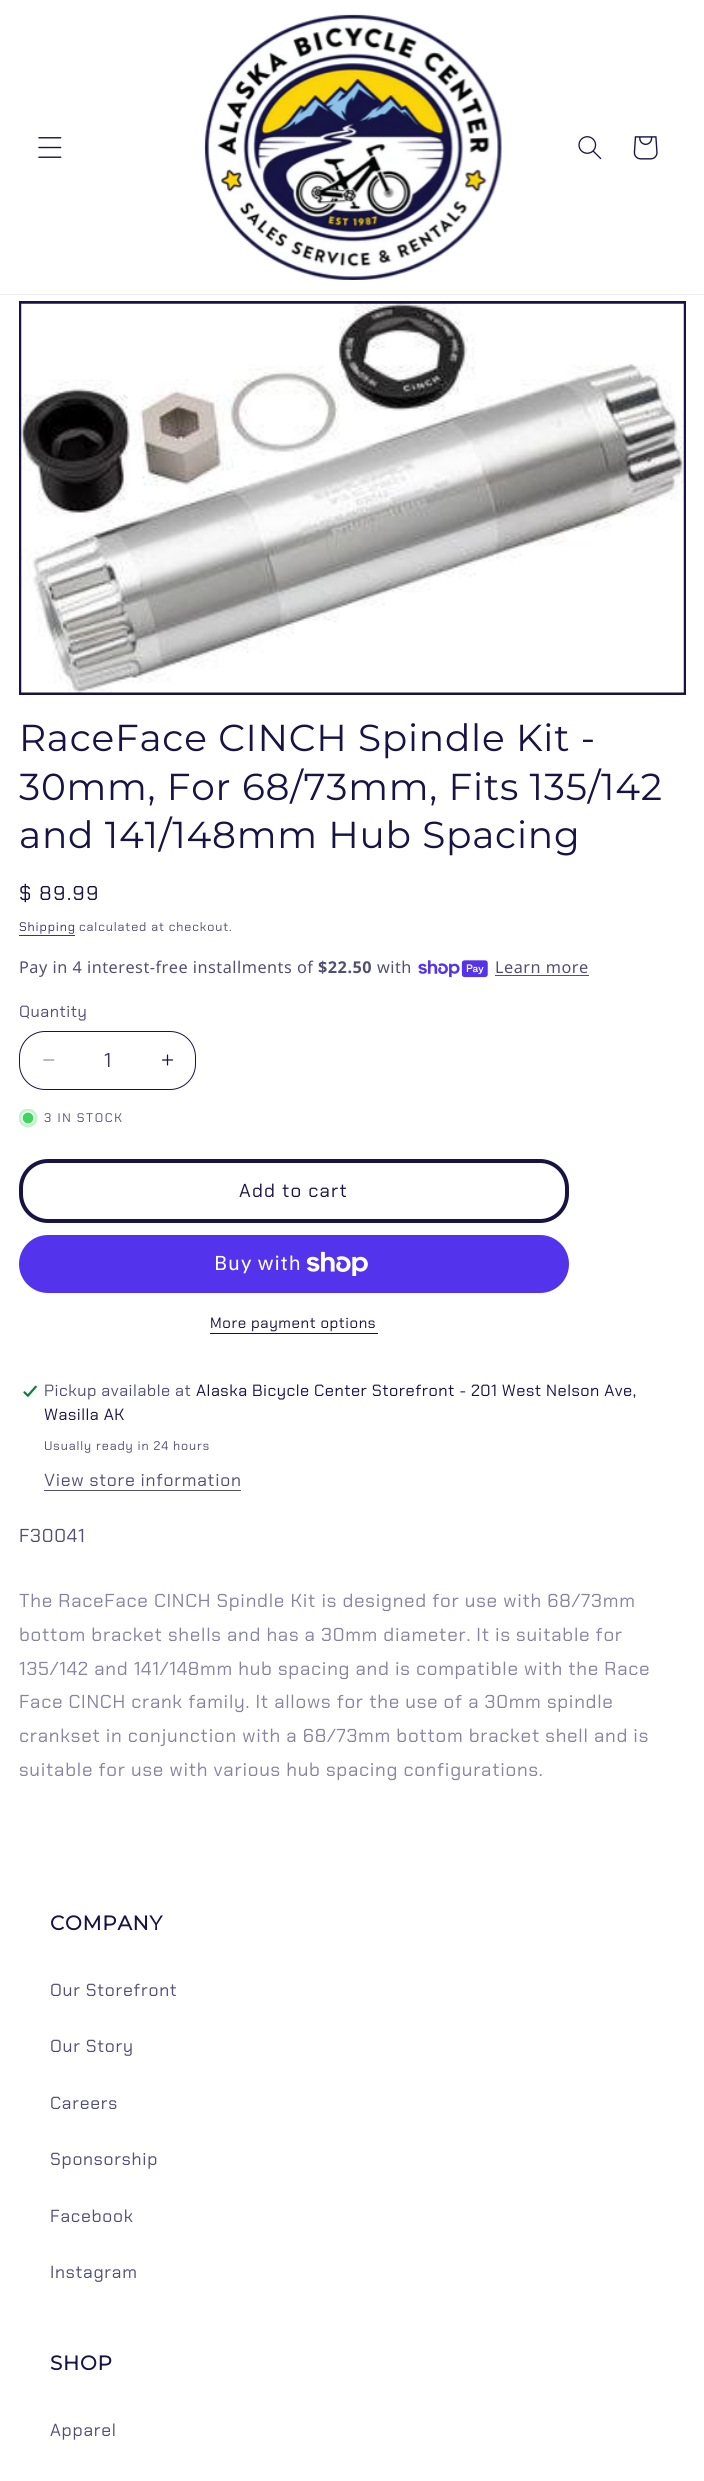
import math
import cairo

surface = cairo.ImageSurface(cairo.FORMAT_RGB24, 704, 2481)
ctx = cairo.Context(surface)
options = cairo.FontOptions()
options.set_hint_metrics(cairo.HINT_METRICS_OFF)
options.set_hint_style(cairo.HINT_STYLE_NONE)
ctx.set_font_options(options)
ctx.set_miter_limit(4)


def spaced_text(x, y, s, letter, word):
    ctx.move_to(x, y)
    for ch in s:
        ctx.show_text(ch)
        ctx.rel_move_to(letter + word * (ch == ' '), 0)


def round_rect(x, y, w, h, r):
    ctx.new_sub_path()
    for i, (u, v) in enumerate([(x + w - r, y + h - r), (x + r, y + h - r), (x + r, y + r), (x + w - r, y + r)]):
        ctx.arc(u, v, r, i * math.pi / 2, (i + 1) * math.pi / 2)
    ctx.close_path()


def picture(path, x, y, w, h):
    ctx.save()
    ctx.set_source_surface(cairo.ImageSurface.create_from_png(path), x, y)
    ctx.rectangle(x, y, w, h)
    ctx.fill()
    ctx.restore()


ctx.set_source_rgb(1, 1, 1)
ctx.paint()
ctx.set_source_rgb(0.929, 0.925, 0.941)
ctx.rectangle(0, 294, 704, 1)
ctx.fill()
picture("img1.png", 38, 137, 24, 21)
picture("img2.png", 204, 14, 298, 266)
picture("img3.png", 578, 136, 24, 24)
picture("img4.png", 633, 136, 25, 24)
ctx.rectangle(20.5, 302.5, 664, 391)
ctx.set_source_rgb(0.094, 0.078, 0.271)
ctx.set_line_width(3)
ctx.stroke()
picture("img5.png", 21, 303, 663, 390)
ctx.select_font_face("Montserrat")
ctx.set_font_size(37.5)
spaced_text(19, 751, "RaceFace CINCH Spindle Kit -", 0.75, 0)
spaced_text(19, 800, "30mm, For 68/73mm, Fits 135/142", 0.75, 0)
spaced_text(19, 848, "and 141/148mm Hub Spacing", 0.75, 0)
ctx.select_font_face("Chakra Petch")
ctx.set_font_size(20)
spaced_text(19, 900, "$ 89.99", 1.6, 0)
ctx.set_font_size(12.5)
ctx.set_source_rgb(0.231, 0.216, 0.38)
spaced_text(19, 931, "Shipping", 0.9, 0)
ctx.rectangle(19, 935, 56, 1)
ctx.fill()
ctx.set_source_rgb(0.322, 0.31, 0.455)
spaced_text(79, 931, "calculated at checkout.", 0.9, 0)
ctx.select_font_face("Noto Sans")
ctx.set_font_size(16.25)
spaced_text(19, 973, "Pay in 4 interest-free installments of", 0.5, 0)
ctx.select_font_face("Noto Sans", cairo.FONT_SLANT_NORMAL, cairo.FONT_WEIGHT_BOLD)
spaced_text(318, 973, "$22.50", 0.5, 0)
ctx.select_font_face("Noto Sans")
spaced_text(377, 973, "with", 0.5, 0)
picture("img6.png", 418, 960, 70, 18)
spaced_text(495, 973, "Learn more", 0.5, 0)
ctx.rectangle(495, 975, 94, 1)
ctx.fill()
ctx.select_font_face("Chakra Petch")
spaced_text(19, 1017, "Quantity", 0.5, 0)
picture("img7.png", 43, 1059, 12, 2)
picture("img8.png", 162, 1054, 12, 12)
round_rect(19.5, 1031.5, 176, 58, 25.5)
ctx.set_source_rgb(0.094, 0.078, 0.271)
ctx.set_line_width(1)
ctx.stroke()
ctx.set_font_size(20)
ctx.set_source_rgb(0.231, 0.216, 0.38)
ctx.move_to(104, 1067)
ctx.show_text("1")
ctx.save()
ctx.rectangle(19, 1109, 19, 19)
ctx.clip()
ctx.set_source_rgb(0.773, 0.953, 0.812)
ctx.arc(28, 1118, 9.5, 0, 2 * math.pi)
ctx.fill()
ctx.restore()
ctx.set_source_rgb(0.243, 0.839, 0.376)
ctx.arc(28, 1118, 6, 0, 2 * math.pi)
ctx.fill_preserve()
ctx.set_source_rgb(1, 1, 1)
ctx.set_line_width(1.2)
ctx.stroke()
ctx.set_font_size(12.5)
ctx.set_source_rgb(0.322, 0.31, 0.455)
spaced_text(44, 1122, "3 IN STOCK", 1.6, 0)
round_rect(21, 1161, 546, 60, 27)
ctx.set_source_rgb(0.094, 0.078, 0.271)
ctx.set_line_width(4)
ctx.stroke()
ctx.set_font_size(18.75)
spaced_text(239, 1197, "Add to cart", 1.25, 0)
ctx.set_source_rgb(0.329, 0.2, 0.922)
round_rect(19, 1235, 550, 58, 29)
ctx.fill()
ctx.select_font_face("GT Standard")
ctx.set_font_size(20)
ctx.set_source_rgb(1, 1, 1)
spaced_text(214, 1270, "Buy with", 0.75, 0)
picture("img9.png", 306, 1251, 62, 25)
ctx.select_font_face("Chakra Petch")
ctx.set_font_size(15)
ctx.set_source_rgb(0.094, 0.078, 0.271)
spaced_text(210, 1328, "More payment options", 0.6, 0)
ctx.rectangle(210, 1333, 168, 1)
ctx.fill()
picture("img10.png", 22, 1385, 16, 13)
ctx.set_font_size(16.25)
ctx.set_source_rgb(0.322, 0.31, 0.455)
spaced_text(44, 1396, "Pickup available at", 0.5, 0)
ctx.set_source_rgb(0.094, 0.078, 0.271)
spaced_text(196, 1396, "Alaska Bicycle Center Storefront - 201 West Nelson Ave,", 0.5, 0)
spaced_text(44, 1420, "Wasilla AK", 0.5, 0)
ctx.set_font_size(12.5)
ctx.set_source_rgb(0.322, 0.31, 0.455)
spaced_text(44, 1450, "Usually ready in 24 hours", 0.9, 0)
ctx.set_font_size(17.5)
spaced_text(44, 1486, "View store information", 0.75, 0)
ctx.rectangle(44, 1490, 197, 1)
ctx.fill()
ctx.set_font_size(18.75)
spaced_text(19, 1542, "F30041", 0.75, 0)
ctx.set_source_rgb(0.525, 0.518, 0.62)
spaced_text(19, 1607, "The RaceFace CINCH Spindle Kit is designed for use with 68/73mm", 0.75, 0)
spaced_text(19, 1641, "bottom bracket shells and has a 30mm diameter. It is suitable for", 0.75, 0)
spaced_text(19, 1675, "135/142 and 141/148mm hub spacing and is compatible with the Race", 0.75, 0)
spaced_text(19, 1708, "Face CINCH crank family. It allows for the use of a 30mm spindle", 0.75, 0)
spaced_text(19, 1742, "crankset in conjunction with a 68/73mm bottom bracket shell and is", 0.75, 0)
spaced_text(19, 1776, "suitable for use with various hub spacing configurations.", 0.75, 0)
ctx.select_font_face("Montserrat", cairo.FONT_SLANT_NORMAL, cairo.FONT_WEIGHT_BOLD)
ctx.set_font_size(20)
ctx.set_source_rgb(0.094, 0.078, 0.271)
spaced_text(50, 1930, "COMPANY", 0.75, 0)
ctx.select_font_face("Chakra Petch")
ctx.set_font_size(17.5)
ctx.set_source_rgb(0.322, 0.31, 0.455)
spaced_text(50, 1996, "Our Storefront", 0.75, 0)
spaced_text(50, 2052, "Our Story", 0.75, 0)
spaced_text(50, 2109, "Careers", 0.75, 0)
spaced_text(50, 2165, "Sponsorship", 0.75, 0)
spaced_text(50, 2222, "Facebook", 0.75, 0)
spaced_text(50, 2278, "Instagram", 0.75, 0)
ctx.select_font_face("Montserrat", cairo.FONT_SLANT_NORMAL, cairo.FONT_WEIGHT_BOLD)
ctx.set_font_size(20)
ctx.set_source_rgb(0.094, 0.078, 0.271)
spaced_text(50, 2370, "SHOP", 0.75, 0)
ctx.select_font_face("Chakra Petch")
ctx.set_font_size(17.5)
ctx.set_source_rgb(0.322, 0.31, 0.455)
spaced_text(50, 2436, "Apparel", 0.75, 0)
surface.write_to_png("page.png")
